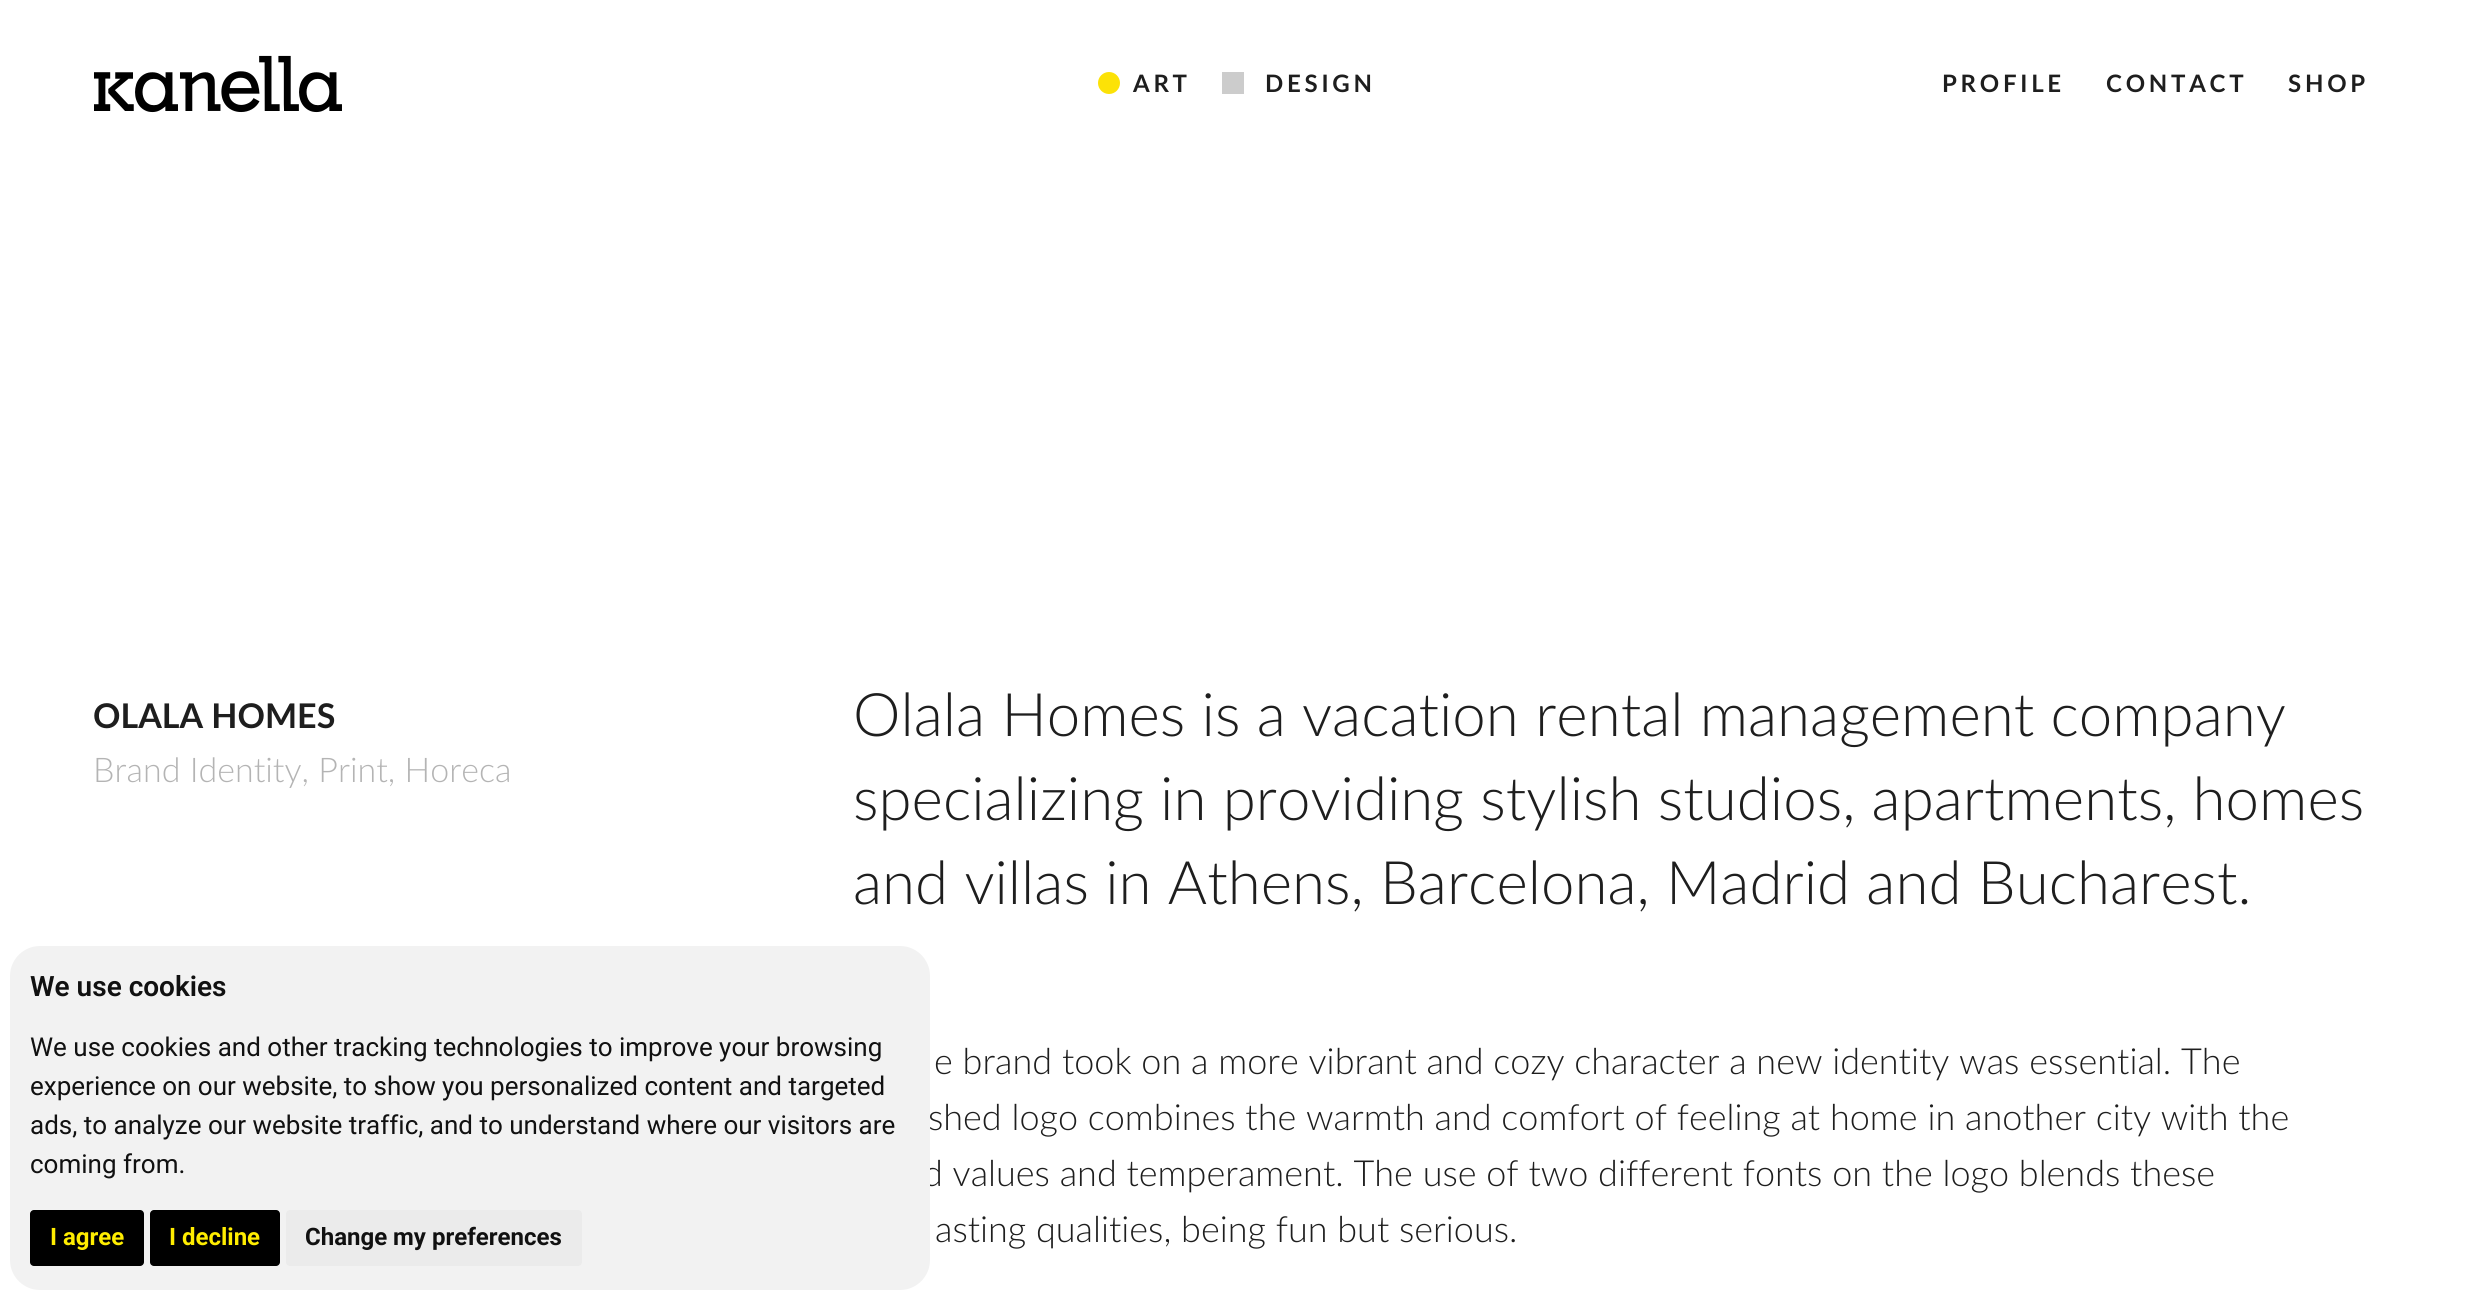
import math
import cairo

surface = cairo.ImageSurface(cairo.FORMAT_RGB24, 2465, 1299)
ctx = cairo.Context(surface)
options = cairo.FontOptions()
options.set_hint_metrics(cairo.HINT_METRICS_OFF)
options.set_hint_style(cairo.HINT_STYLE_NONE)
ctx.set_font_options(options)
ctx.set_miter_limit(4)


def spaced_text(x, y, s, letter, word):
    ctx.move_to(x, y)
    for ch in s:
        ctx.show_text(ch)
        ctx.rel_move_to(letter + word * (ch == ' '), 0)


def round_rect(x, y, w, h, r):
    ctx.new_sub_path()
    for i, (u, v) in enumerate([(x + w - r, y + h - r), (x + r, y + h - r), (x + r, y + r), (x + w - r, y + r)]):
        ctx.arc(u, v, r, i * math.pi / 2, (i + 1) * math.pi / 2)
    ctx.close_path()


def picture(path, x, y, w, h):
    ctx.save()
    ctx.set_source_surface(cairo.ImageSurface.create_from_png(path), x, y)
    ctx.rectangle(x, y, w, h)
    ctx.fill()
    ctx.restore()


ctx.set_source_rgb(1, 1, 1)
ctx.paint()
picture("img1.png", 94, 55, 248, 58)
ctx.set_source_rgb(0.988, 0.886, 0.031)
ctx.arc(1109, 83, 11, 0, 2 * math.pi)
ctx.fill()
ctx.select_font_face("Lato", cairo.FONT_SLANT_NORMAL, cairo.FONT_WEIGHT_BOLD)
ctx.set_font_size(24)
ctx.set_source_rgb(0.118, 0.118, 0.118)
spaced_text(1133, 92, "ART", 3.75, 0)
ctx.set_source_rgb(0.8, 0.8, 0.8)
ctx.rectangle(1222, 72, 22, 22)
ctx.fill()
ctx.set_source_rgb(0.118, 0.118, 0.118)
spaced_text(1265, 92, "DESIGN", 3.75, 0)
spaced_text(1942, 92, "PROFILE", 3.75, 0)
spaced_text(2106, 92, "CONTACT", 3.75, 0)
spaced_text(2288, 92, "SHOP", 3.75, 0)
ctx.set_font_size(34)
ctx.move_to(93, 728)
ctx.show_text("OLALA HOMES")
ctx.select_font_face("Lato Light")
ctx.set_source_rgb(0.706, 0.706, 0.706)
ctx.move_to(93, 782)
ctx.show_text("Brand Identity, Print, Horeca")
ctx.set_font_size(60)
ctx.set_source_rgb(0.118, 0.118, 0.118)
ctx.move_to(853, 736)
ctx.show_text("Olala Homes is a vacation rental management company")
ctx.move_to(853, 820)
ctx.show_text("specializing in providing stylish studios, apartments, homes")
ctx.move_to(853, 904)
ctx.show_text("and villas in Athens, Barcelona, Madrid and Bucharest.")
ctx.set_font_size(36)
ctx.move_to(934, 1074)
ctx.show_text("e brand took on a more vibrant and cozy character a new identity was essential. The")
ctx.move_to(928, 1130)
ctx.show_text("shed logo combines the warmth and comfort of feeling at home in another city with the")
ctx.move_to(923, 1186)
ctx.show_text("d values and temperament. The use of two different fonts on the logo blends these")
ctx.move_to(935, 1242)
ctx.show_text("asting qualities, being fun but serious.")
ctx.set_source_rgb(0.949, 0.949, 0.949)
round_rect(10, 946, 920, 344, 30)
ctx.fill()
ctx.select_font_face("Roboto SemiBold")
ctx.set_font_size(28)
ctx.set_source_rgb(0.067, 0.067, 0.067)
ctx.move_to(30, 996)
ctx.show_text("We use cookies")
ctx.select_font_face("Roboto")
ctx.set_font_size(26)
ctx.move_to(30, 1056)
ctx.show_text("We use cookies and other tracking technologies to improve your browsing")
ctx.move_to(30, 1095)
ctx.show_text("experience on our website, to show you personalized content and targeted")
ctx.move_to(30, 1134)
ctx.show_text("ads, to analyze our website traffic, and to understand where our visitors are")
ctx.move_to(30, 1173)
ctx.show_text("coming from.")
ctx.set_source_rgb(0, 0, 0)
round_rect(30, 1210, 114, 56, 4)
ctx.fill()
ctx.select_font_face("Roboto", cairo.FONT_SLANT_NORMAL, cairo.FONT_WEIGHT_BOLD)
ctx.set_font_size(24)
ctx.set_source_rgb(1, 0.929, 0)
ctx.move_to(50, 1245)
ctx.show_text("I agree")
ctx.set_source_rgb(0, 0, 0)
round_rect(150, 1210, 130, 56, 4)
ctx.fill()
ctx.set_source_rgb(1, 0.929, 0)
ctx.move_to(169, 1245)
ctx.show_text("I decline")
ctx.set_source_rgb(0.918, 0.918, 0.918)
round_rect(286, 1210, 296, 56, 4)
ctx.fill()
ctx.set_source_rgb(0.067, 0.067, 0.067)
ctx.move_to(305, 1245)
ctx.show_text("Change my preferences")
surface.write_to_png("page.png")
